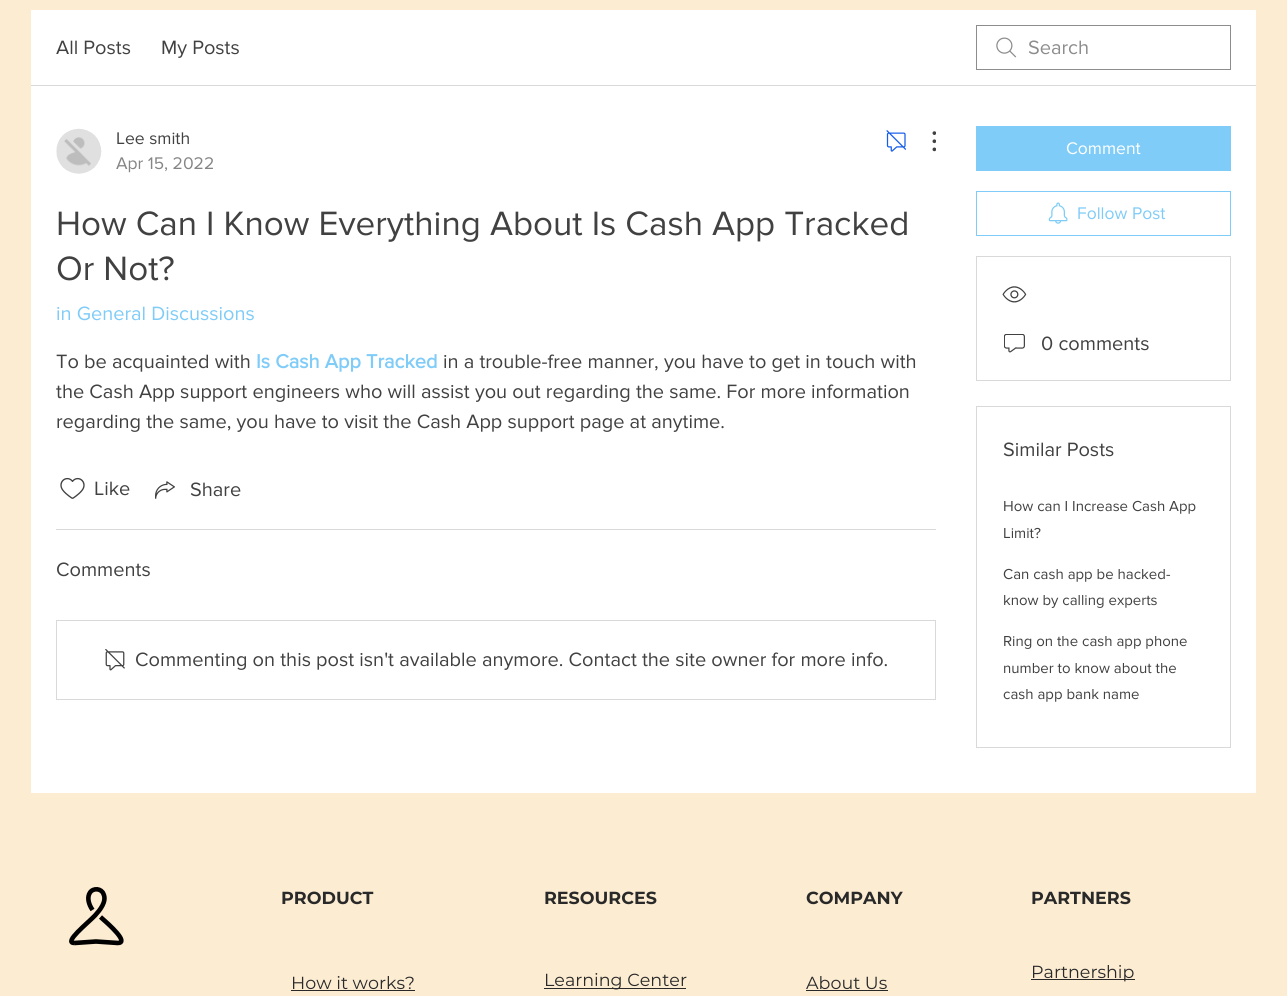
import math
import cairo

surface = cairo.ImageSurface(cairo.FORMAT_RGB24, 1287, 996)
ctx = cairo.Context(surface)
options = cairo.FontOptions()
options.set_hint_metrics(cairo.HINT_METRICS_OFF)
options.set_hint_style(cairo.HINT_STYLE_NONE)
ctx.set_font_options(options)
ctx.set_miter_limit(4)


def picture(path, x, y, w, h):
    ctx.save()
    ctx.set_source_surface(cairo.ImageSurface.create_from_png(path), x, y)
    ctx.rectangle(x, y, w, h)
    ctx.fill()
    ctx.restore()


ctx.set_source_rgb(0.988, 0.925, 0.824)
ctx.paint()
ctx.set_source_rgb(1, 1, 1)
ctx.rectangle(31, 10, 1225, 783)
ctx.fill()
ctx.set_source_rgb(0.851, 0.851, 0.851)
ctx.rectangle(31, 85, 1225, 1)
ctx.fill()
ctx.select_font_face("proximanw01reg")
ctx.set_font_size(20)
ctx.set_source_rgb(0.255, 0.255, 0.255)
ctx.move_to(56, 54)
ctx.show_text("All Posts")
ctx.move_to(161, 54)
ctx.show_text("My Posts")
picture("img1.png", 996, 37, 21, 21)
ctx.rectangle(976.5, 25.5, 254, 44)
ctx.set_source_rgb(0.553, 0.553, 0.553)
ctx.set_line_width(1)
ctx.stroke()
ctx.move_to(1028, 54)
ctx.show_text("Search")
picture("img2.png", 56, 128, 46, 46)
ctx.set_font_size(17.5)
ctx.set_source_rgb(0.255, 0.255, 0.255)
ctx.move_to(116, 144)
ctx.show_text("Lee smith")
ctx.set_source_rgb(0.522, 0.522, 0.522)
ctx.move_to(116, 169)
ctx.show_text("Apr 15, 2022")
picture("img3.png", 886, 130, 20, 22)
picture("img4.png", 932, 131, 4, 21)
ctx.set_font_size(35)
ctx.set_source_rgb(0.255, 0.255, 0.255)
ctx.move_to(56, 235)
ctx.show_text("How Can I Know Everything About Is Cash App Tracked")
ctx.move_to(56, 280)
ctx.show_text("Or Not?")
ctx.set_font_size(20)
ctx.set_source_rgb(0.498, 0.8, 0.969)
ctx.move_to(56, 320)
ctx.show_text("in General Discussions")
ctx.set_source_rgb(0.255, 0.255, 0.255)
ctx.move_to(56, 368)
ctx.show_text("To be acquainted with")
ctx.select_font_face("proximanw01reg", cairo.FONT_SLANT_NORMAL, cairo.FONT_WEIGHT_BOLD)
ctx.set_source_rgb(0.498, 0.8, 0.969)
ctx.move_to(256, 368)
ctx.show_text("Is Cash App Tracked")
ctx.select_font_face("proximanw01reg")
ctx.set_source_rgb(0.255, 0.255, 0.255)
ctx.move_to(443, 368)
ctx.show_text("in a trouble-free manner, you have to get in touch with")
ctx.move_to(56, 398)
ctx.show_text("the Cash App support engineers who will assist you out regarding the same. For more information")
ctx.move_to(56, 428)
ctx.show_text("regarding the same, you have to visit the Cash App support page at anytime.")
picture("img5.png", 60, 477, 25, 22)
ctx.move_to(94, 495)
ctx.show_text("Like")
picture("img6.png", 155, 481, 20, 18)
ctx.move_to(190, 496)
ctx.show_text("Share")
ctx.set_source_rgb(0.851, 0.851, 0.851)
ctx.rectangle(56, 529, 880, 1)
ctx.fill()
ctx.set_source_rgb(0.255, 0.255, 0.255)
ctx.move_to(56, 576)
ctx.show_text("Comments")
ctx.rectangle(56.5, 620.5, 879, 79)
ctx.set_source_rgb(0.851, 0.851, 0.851)
ctx.stroke()
picture("img7.png", 105, 649, 20, 22)
ctx.set_source_rgb(0.255, 0.255, 0.255)
ctx.move_to(135, 666)
ctx.show_text("Commenting on this post isn't available anymore. Contact the site owner for more info.")
ctx.set_source_rgb(0.498, 0.8, 0.969)
ctx.rectangle(976, 126, 255, 45)
ctx.fill()
ctx.set_font_size(17.5)
ctx.set_source_rgb(1, 1, 1)
ctx.move_to(1066, 154)
ctx.show_text("Comment")
ctx.rectangle(976.5, 191.5, 254, 44)
ctx.set_source_rgb(0.498, 0.8, 0.969)
ctx.stroke()
picture("img8.png", 1048, 202, 20, 22)
ctx.move_to(1077, 219)
ctx.show_text("Follow Post")
ctx.rectangle(976.5, 256.5, 254, 124)
ctx.set_source_rgb(0.851, 0.851, 0.851)
ctx.stroke()
picture("img9.png", 1002, 286, 25, 17)
picture("img10.png", 1004, 334, 21, 19)
ctx.set_font_size(20)
ctx.set_source_rgb(0.255, 0.255, 0.255)
ctx.move_to(1041, 350)
ctx.show_text("0 comments")
ctx.rectangle(976.5, 406.5, 254, 341)
ctx.set_source_rgb(0.851, 0.851, 0.851)
ctx.stroke()
ctx.set_source_rgb(0.255, 0.255, 0.255)
ctx.move_to(1003, 456)
ctx.show_text("Similar Posts")
ctx.set_font_size(15)
ctx.move_to(1003, 511)
ctx.show_text("How can I Increase Cash App")
ctx.move_to(1003, 538)
ctx.show_text("Limit?")
ctx.move_to(1003, 579)
ctx.show_text("Can cash app be hacked-")
ctx.move_to(1003, 605)
ctx.show_text("know by calling experts")
ctx.move_to(1003, 646)
ctx.show_text("Ring on the cash app phone")
ctx.move_to(1003, 673)
ctx.show_text("number to know about the")
ctx.move_to(1003, 699)
ctx.show_text("cash app bank name")
ctx.new_path()
ctx.move_to(74.5, 943)
ctx.line_to(96, 941.5)
ctx.line_to(118, 943)
ctx.move_to(117.5, 943)
ctx.curve_to(130, 943, 109, 924.5, 100.5, 917)
ctx.move_to(74.5, 943)
ctx.curve_to(62.5, 943, 88, 923, 95.5, 915)
ctx.move_to(95, 915.5)
ctx.curve_to(100, 910, 107, 901.5, 103.5, 894)
ctx.curve_to(101.5, 888.5, 93.5, 887.5, 90, 892.5)
ctx.curve_to(87, 897, 88.5, 903, 91, 907.5)
ctx.line_to(92.5, 910)
ctx.set_source_rgb(0, 0, 0)
ctx.set_line_width(4.6)
ctx.stroke()
ctx.select_font_face("Montserrat", cairo.FONT_SLANT_NORMAL, cairo.FONT_WEIGHT_BOLD)
ctx.set_font_size(17.5)
ctx.set_source_rgb(0.161, 0.161, 0.161)
ctx.move_to(281, 904)
ctx.show_text("PRODUCT")
ctx.move_to(544, 904)
ctx.show_text("RESOURCES")
ctx.move_to(806, 904)
ctx.show_text("COMPANY")
ctx.move_to(1031, 904)
ctx.show_text("PARTNERS")
ctx.select_font_face("Montserrat")
ctx.move_to(291, 989)
ctx.show_text("How it works?")
ctx.rectangle(291, 990, 124, 1)
ctx.fill()
ctx.rectangle(544, 988, 142, 1)
ctx.fill()
ctx.move_to(544, 986)
ctx.show_text("Learning Center")
ctx.move_to(806, 989)
ctx.show_text("About Us")
ctx.rectangle(806, 990, 82, 1)
ctx.fill()
ctx.rectangle(1031, 979, 104, 1)
ctx.fill()
ctx.move_to(1031, 978)
ctx.show_text("Partnership")
surface.write_to_png("page.png")
